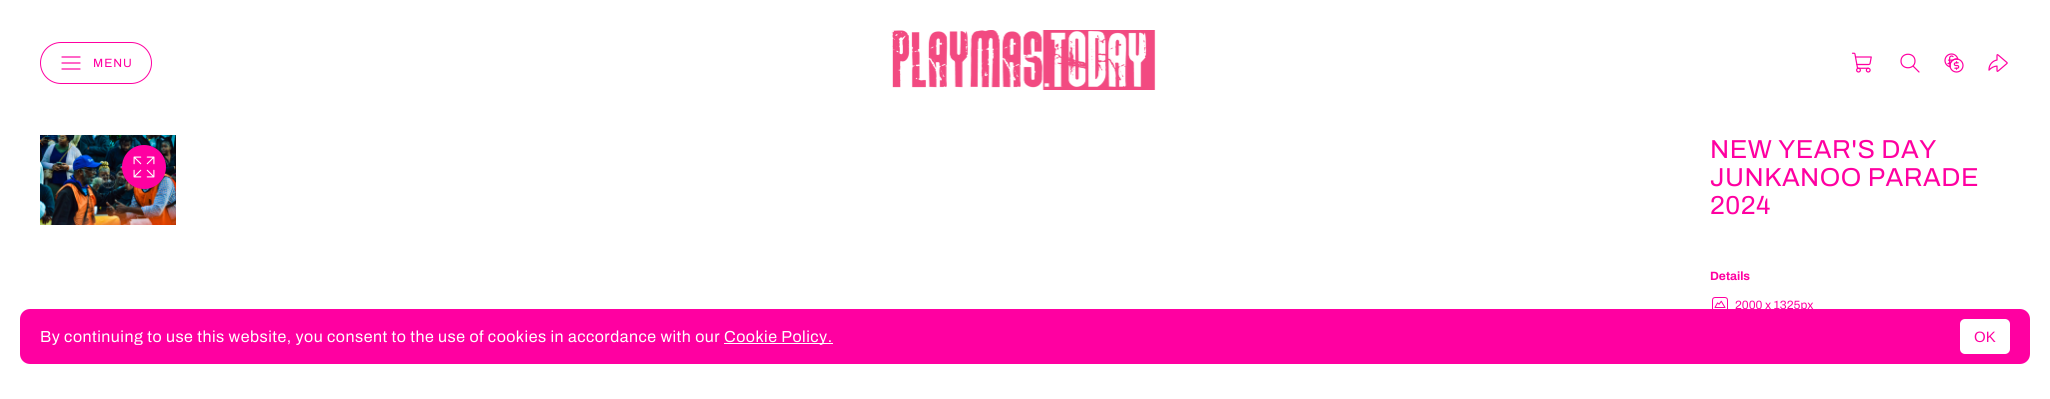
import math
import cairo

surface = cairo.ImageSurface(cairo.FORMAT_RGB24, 2050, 399)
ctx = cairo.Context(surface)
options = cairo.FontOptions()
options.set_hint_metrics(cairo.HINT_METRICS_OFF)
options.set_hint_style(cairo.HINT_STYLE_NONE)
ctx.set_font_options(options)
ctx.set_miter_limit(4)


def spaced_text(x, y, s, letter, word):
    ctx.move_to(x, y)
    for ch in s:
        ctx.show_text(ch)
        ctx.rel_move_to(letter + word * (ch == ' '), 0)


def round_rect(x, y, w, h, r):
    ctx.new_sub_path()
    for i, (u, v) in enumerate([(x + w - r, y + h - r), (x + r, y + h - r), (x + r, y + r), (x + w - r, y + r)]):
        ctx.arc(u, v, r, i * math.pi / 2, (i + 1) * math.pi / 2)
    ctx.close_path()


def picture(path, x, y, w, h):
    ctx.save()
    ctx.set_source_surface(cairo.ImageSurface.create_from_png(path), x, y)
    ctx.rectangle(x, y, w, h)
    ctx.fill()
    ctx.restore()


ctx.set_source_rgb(1, 1, 1)
ctx.paint()
round_rect(40.5, 42.5, 111, 41, 20.5)
ctx.set_source_rgb(1, 0, 0.631)
ctx.set_line_width(1)
ctx.stroke()
ctx.new_path()
ctx.move_to(62, 63)
ctx.line_to(80, 63)
ctx.move_to(62, 57)
ctx.line_to(80, 57)
ctx.move_to(62, 69)
ctx.line_to(80, 69)
ctx.set_line_width(1.2)
ctx.set_line_cap(cairo.LINE_CAP_ROUND)
ctx.set_line_join(cairo.LINE_JOIN_ROUND)
ctx.stroke()
ctx.select_font_face("Archivo")
ctx.set_font_size(12)
spaced_text(93, 67, "MENU", 1, 0)
picture("img1.png", 891, 30, 265, 60)
picture("img2.png", 1851, 52, 21, 21)
ctx.new_path()
ctx.move_to(1919, 72)
ctx.line_to(1913, 66)
ctx.move_to(1915, 61)
ctx.curve_to(1915, 70, 1901, 70, 1901, 61)
ctx.curve_to(1901, 52, 1915, 52, 1915, 61)
ctx.close_path()
ctx.stroke()
picture("img3.png", 1944, 53, 20, 20)
picture("img4.png", 1988, 54, 20, 18)
picture("img5.png", 40, 135, 136, 90)
ctx.arc(144, 167, 22, 0, 2 * math.pi)
ctx.fill()
picture("img6.png", 133, 156, 22, 22)
ctx.set_font_size(26)
spaced_text(1710, 158, "NEW YEAR'S DAY", 0.5, 0)
spaced_text(1710, 186, "JUNKANOO PARADE", 0.5, 0)
spaced_text(1710, 214, "2024", 0.5, 0)
ctx.select_font_face("Archivo", cairo.FONT_SLANT_NORMAL, cairo.FONT_WEIGHT_BOLD)
ctx.set_font_size(12)
ctx.move_to(1710, 280)
ctx.show_text("Details")
picture("img7.png", 1712, 297, 16, 12)
ctx.select_font_face("Archivo")
ctx.move_to(1735, 309)
ctx.show_text("2000 x 1325px")
round_rect(20, 309, 2010, 55, 10)
ctx.fill()
ctx.set_font_size(16)
ctx.set_source_rgb(1, 1, 1)
spaced_text(40, 342, "By continuing to use this website, you consent to the use of cookies in accordance with our", 0.5, 0)
ctx.rectangle(724, 343, 109, 1)
ctx.fill()
spaced_text(724, 342, "Cookie Policy.", 0.5, 0)
round_rect(1960, 319, 50, 35, 5)
ctx.fill()
ctx.select_font_face("Liberation Sans")
ctx.set_font_size(15)
ctx.set_source_rgb(1, 0, 0.631)
ctx.move_to(1974, 342)
ctx.show_text("OK")
surface.write_to_png("page.png")
